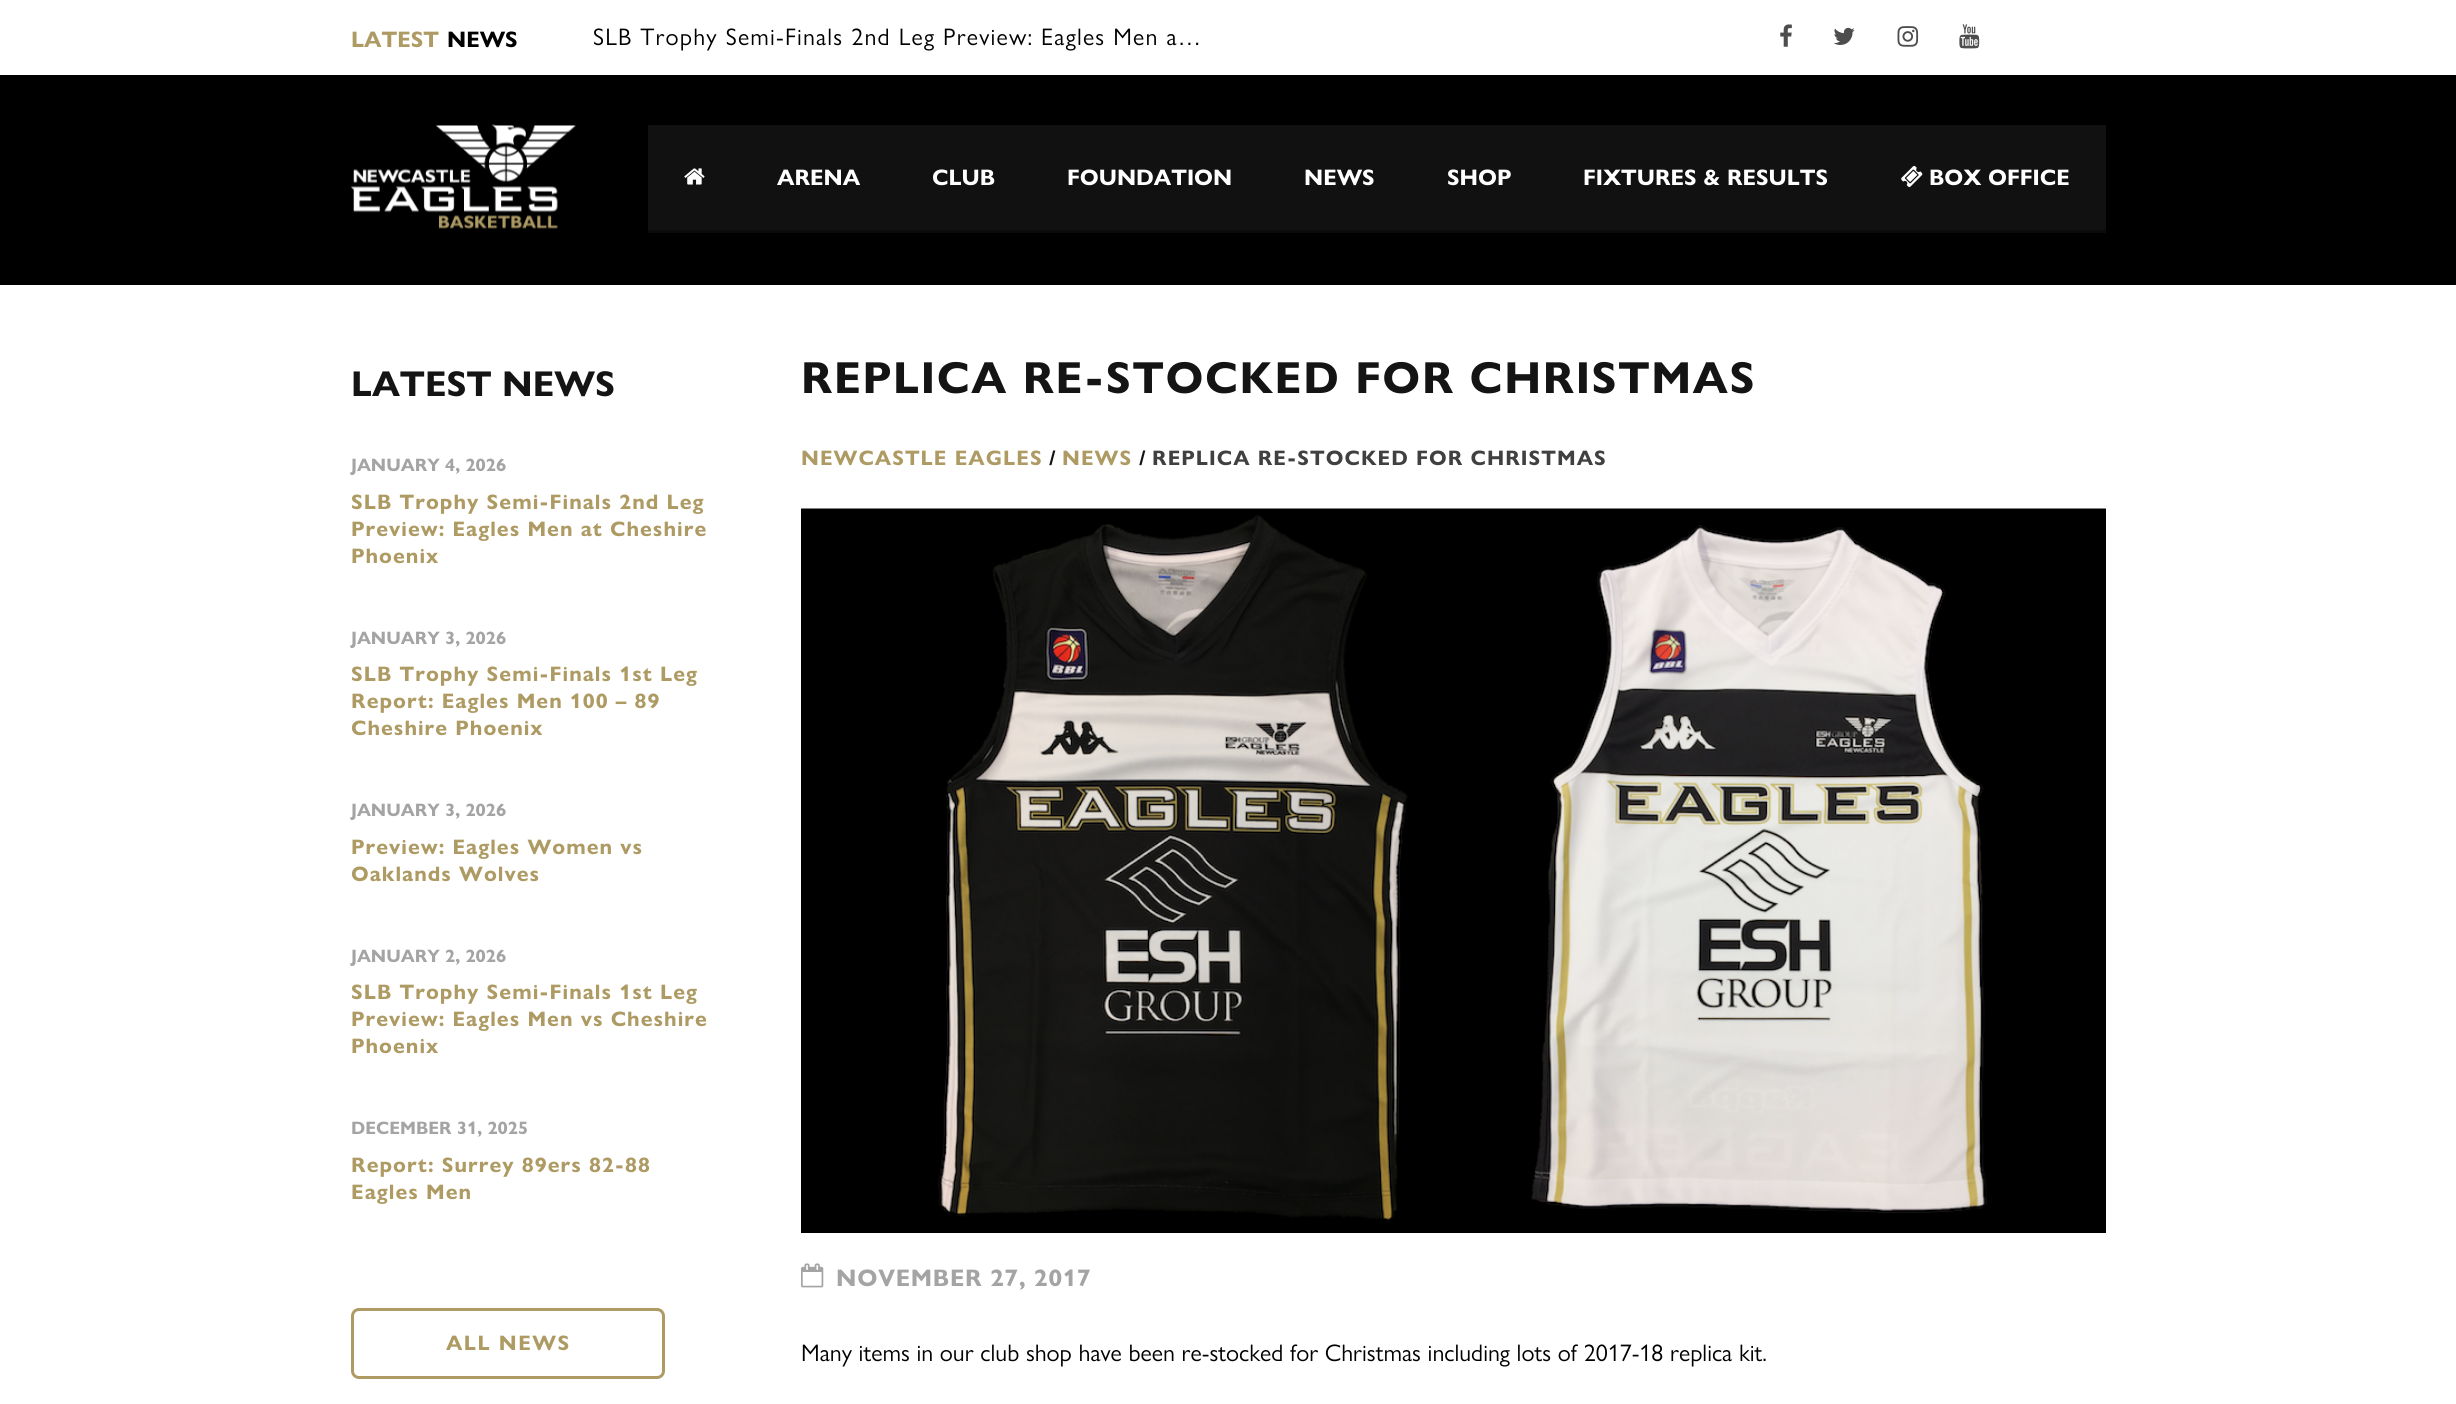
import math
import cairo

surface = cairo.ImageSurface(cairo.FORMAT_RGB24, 2456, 1404)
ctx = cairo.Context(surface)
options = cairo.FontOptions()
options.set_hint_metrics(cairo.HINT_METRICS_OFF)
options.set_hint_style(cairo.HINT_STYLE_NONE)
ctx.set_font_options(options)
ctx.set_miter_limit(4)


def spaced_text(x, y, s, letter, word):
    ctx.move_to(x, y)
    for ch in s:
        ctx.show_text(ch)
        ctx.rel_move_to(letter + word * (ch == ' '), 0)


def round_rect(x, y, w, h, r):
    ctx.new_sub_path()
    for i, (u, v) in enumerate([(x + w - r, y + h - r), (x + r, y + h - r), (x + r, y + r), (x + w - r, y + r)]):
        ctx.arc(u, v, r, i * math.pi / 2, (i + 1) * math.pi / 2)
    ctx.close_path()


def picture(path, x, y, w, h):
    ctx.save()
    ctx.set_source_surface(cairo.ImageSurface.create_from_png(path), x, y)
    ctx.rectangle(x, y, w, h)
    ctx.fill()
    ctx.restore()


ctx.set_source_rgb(1, 1, 1)
ctx.paint()
ctx.select_font_face("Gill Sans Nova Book", cairo.FONT_SLANT_NORMAL, cairo.FONT_WEIGHT_BOLD)
ctx.set_font_size(22.5)
ctx.set_source_rgb(0.682, 0.604, 0.388)
ctx.move_to(351, 47)
ctx.show_text("LATEST")
ctx.set_source_rgb(0, 0, 0)
ctx.move_to(447, 47)
ctx.show_text("NEWS")
ctx.select_font_face("Gill Sans Nova Book")
ctx.set_font_size(24)
spaced_text(593, 45, "SLB Trophy Semi-Finals 2nd Leg Preview: Eagles Men a…", 1.2, 0)
picture("img1.png", 1780, 24, 12, 23)
picture("img2.png", 1833, 27, 22, 18)
picture("img3.png", 1897, 26, 22, 21)
picture("img4.png", 1959, 24, 21, 25)
ctx.rectangle(0, 75, 2456, 210)
ctx.fill()
picture("img5.png", 351, 124, 225, 105)
ctx.set_source_rgb(0.067, 0.067, 0.067)
ctx.rectangle(648, 125, 1458, 105)
ctx.fill()
picture("img6.png", 684, 168, 21, 17)
ctx.select_font_face("Gill Sans Nova Book", cairo.FONT_SLANT_NORMAL, cairo.FONT_WEIGHT_BOLD)
ctx.set_font_size(22.5)
ctx.set_source_rgb(1, 1, 1)
ctx.move_to(777, 185)
ctx.show_text("ARENA")
ctx.move_to(932, 185)
ctx.show_text("CLUB")
ctx.move_to(1067, 185)
ctx.show_text("FOUNDATION")
ctx.move_to(1304, 185)
ctx.show_text("NEWS")
ctx.move_to(1447, 185)
ctx.show_text("SHOP")
ctx.move_to(1583, 185)
ctx.show_text("FIXTURES & RESULTS")
picture("img7.png", 1901, 165, 22, 22)
ctx.move_to(1929, 185)
ctx.show_text("BOX OFFICE")
ctx.set_source_rgb(0.043, 0.043, 0.043)
ctx.rectangle(648, 230, 1458, 3)
ctx.fill()
ctx.set_font_size(36)
ctx.set_source_rgb(0.082, 0.082, 0.082)
ctx.move_to(351, 396)
ctx.show_text("LATEST NEWS")
ctx.set_font_size(18)
ctx.set_source_rgb(0.643, 0.643, 0.643)
ctx.move_to(351, 471)
ctx.show_text("JANUARY 4, 2026")
ctx.set_font_size(21)
ctx.set_source_rgb(0.682, 0.604, 0.388)
spaced_text(351, 509, "SLB Trophy Semi-Finals 2nd Leg", 1.05, 0)
spaced_text(351, 536, "Preview: Eagles Men at Cheshire", 1.05, 0)
spaced_text(351, 563, "Phoenix", 1.05, 0)
ctx.set_font_size(18)
ctx.set_source_rgb(0.643, 0.643, 0.643)
ctx.move_to(351, 644)
ctx.show_text("JANUARY 3, 2026")
ctx.set_font_size(21)
ctx.set_source_rgb(0.682, 0.604, 0.388)
spaced_text(351, 681, "SLB Trophy Semi-Finals 1st Leg", 1.05, 0)
spaced_text(351, 708, "Report: Eagles Men 100 – 89", 1.05, 0)
spaced_text(351, 735, "Cheshire Phoenix", 1.05, 0)
ctx.set_font_size(18)
ctx.set_source_rgb(0.643, 0.643, 0.643)
ctx.move_to(351, 816)
ctx.show_text("JANUARY 3, 2026")
ctx.set_font_size(21)
ctx.set_source_rgb(0.682, 0.604, 0.388)
spaced_text(351, 854, "Preview: Eagles Women vs", 1.05, 0)
spaced_text(351, 881, "Oaklands Wolves", 1.05, 0)
ctx.set_font_size(18)
ctx.set_source_rgb(0.643, 0.643, 0.643)
ctx.move_to(351, 962)
ctx.show_text("JANUARY 2, 2026")
ctx.set_font_size(21)
ctx.set_source_rgb(0.682, 0.604, 0.388)
spaced_text(351, 999, "SLB Trophy Semi-Finals 1st Leg", 1.05, 0)
spaced_text(351, 1026, "Preview: Eagles Men vs Cheshire", 1.05, 0)
spaced_text(351, 1053, "Phoenix", 1.05, 0)
ctx.set_font_size(18)
ctx.set_source_rgb(0.643, 0.643, 0.643)
ctx.move_to(351, 1134)
ctx.show_text("DECEMBER 31, 2025")
ctx.set_font_size(21)
ctx.set_source_rgb(0.682, 0.604, 0.388)
spaced_text(351, 1172, "Report: Surrey 89ers 82-88", 1.05, 0)
spaced_text(351, 1199, "Eagles Men", 1.05, 0)
round_rect(352.5, 1309.5, 311, 68, 6.5)
ctx.set_line_width(3)
ctx.stroke()
spaced_text(446, 1350, "ALL NEWS", 1.5, 0)
ctx.set_font_size(45)
ctx.set_source_rgb(0.082, 0.082, 0.082)
spaced_text(801, 393, "REPLICA RE-STOCKED FOR CHRISTMAS", 1.65, 0)
ctx.set_font_size(21)
ctx.set_source_rgb(0.682, 0.604, 0.388)
spaced_text(801, 465, "NEWCASTLE EAGLES", 1.05, 0)
ctx.set_source_rgb(0.082, 0.082, 0.082)
spaced_text(1049, 465, "/", 1.05, 0)
ctx.set_source_rgb(0.682, 0.604, 0.388)
spaced_text(1062, 465, "NEWS", 1.05, 0)
ctx.set_source_rgb(0.082, 0.082, 0.082)
spaced_text(1139, 465, "/", 1.05, 0)
ctx.set_source_rgb(0.251, 0.251, 0.251)
spaced_text(1152, 465, "REPLICA RE-STOCKED FOR CHRISTMAS", 1.05, 0)
picture("img8.png", 801, 508, 1305, 725)
picture("img9.png", 801, 1263, 23, 25)
ctx.set_font_size(24)
ctx.set_source_rgb(0.643, 0.643, 0.643)
spaced_text(836, 1286, "NOVEMBER 27, 2017", 0.75, 0)
ctx.select_font_face("Gill Sans Nova Book")
ctx.set_source_rgb(0, 0, 0)
ctx.move_to(801, 1361)
ctx.show_text("Many items in our club shop have been re-stocked for Christmas including lots of 2017-18 replica kit.")
surface.write_to_png("page.png")
